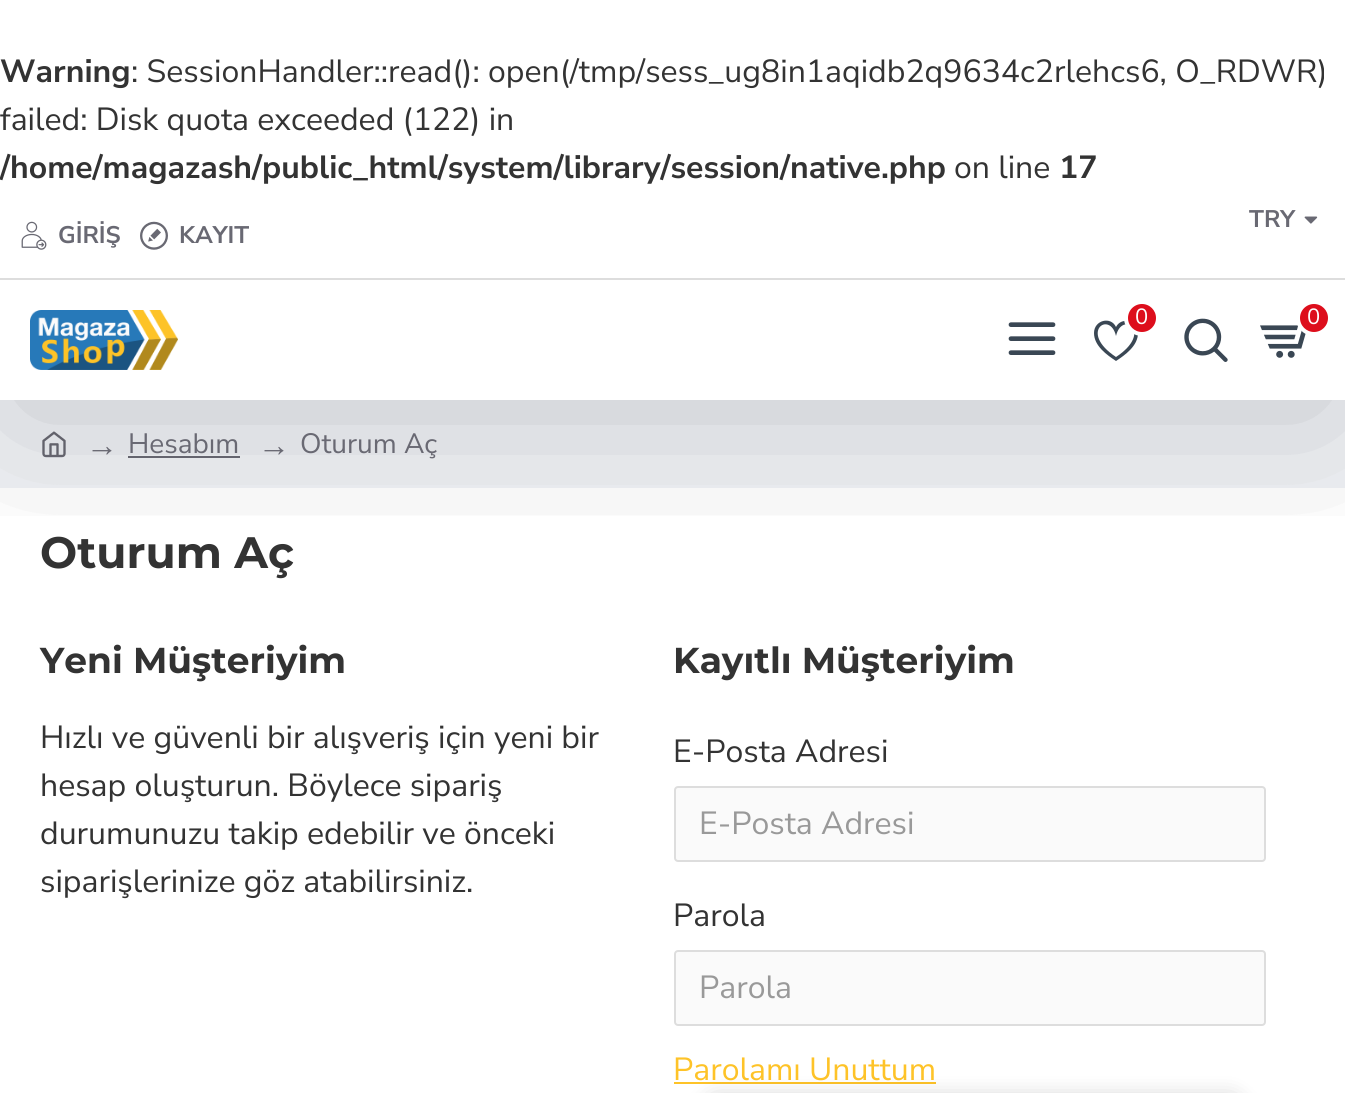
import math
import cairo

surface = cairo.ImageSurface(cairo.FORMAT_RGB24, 1345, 1093)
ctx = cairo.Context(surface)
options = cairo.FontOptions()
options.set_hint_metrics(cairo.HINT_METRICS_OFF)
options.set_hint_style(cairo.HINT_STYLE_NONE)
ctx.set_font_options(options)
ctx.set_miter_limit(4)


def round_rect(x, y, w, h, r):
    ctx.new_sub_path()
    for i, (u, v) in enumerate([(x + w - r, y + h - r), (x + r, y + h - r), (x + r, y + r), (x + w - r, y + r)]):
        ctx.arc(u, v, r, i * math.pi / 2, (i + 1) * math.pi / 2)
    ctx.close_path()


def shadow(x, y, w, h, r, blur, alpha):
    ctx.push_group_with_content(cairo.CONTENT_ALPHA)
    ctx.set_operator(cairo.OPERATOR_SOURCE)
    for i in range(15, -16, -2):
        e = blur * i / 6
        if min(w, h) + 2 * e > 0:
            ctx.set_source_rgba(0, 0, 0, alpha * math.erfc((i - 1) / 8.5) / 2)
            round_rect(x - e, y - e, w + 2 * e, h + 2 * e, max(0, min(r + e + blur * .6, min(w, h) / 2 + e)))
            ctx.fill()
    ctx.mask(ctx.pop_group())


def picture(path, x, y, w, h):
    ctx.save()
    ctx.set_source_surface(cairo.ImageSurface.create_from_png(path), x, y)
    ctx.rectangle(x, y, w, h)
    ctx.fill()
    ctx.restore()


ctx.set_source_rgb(1, 1, 1)
ctx.paint()
ctx.select_font_face("Nunito Sans", cairo.FONT_SLANT_NORMAL, cairo.FONT_WEIGHT_BOLD)
ctx.set_font_size(32)
ctx.set_source_rgb(0.2, 0.2, 0.2)
ctx.move_to(0, 82)
ctx.show_text("Warning")
ctx.select_font_face("Nunito Sans")
ctx.move_to(131, 82)
ctx.show_text(": SessionHandler::read(): open(/tmp/sess_ug8in1aqidb2q9634c2rlehcs6, O_RDWR)")
ctx.move_to(0, 130)
ctx.show_text("failed: Disk quota exceeded (122) in")
ctx.select_font_face("Nunito Sans", cairo.FONT_SLANT_NORMAL, cairo.FONT_WEIGHT_BOLD)
ctx.move_to(0, 178)
ctx.show_text("/home/magazash/public_html/system/library/session/native.php")
ctx.select_font_face("Nunito Sans")
ctx.move_to(954, 178)
ctx.show_text("on line")
ctx.select_font_face("Nunito Sans", cairo.FONT_SLANT_NORMAL, cairo.FONT_WEIGHT_BOLD)
ctx.move_to(1059, 178)
ctx.show_text("17")
ctx.set_source_rgb(0.941, 0.949, 0.961)
ctx.rectangle(0, 400, 1345, 88)
ctx.fill()
picture("img8.png", 42, 431, 24, 27)
ctx.set_source_rgb(0.412, 0.412, 0.451)
ctx.rectangle(128, 456, 112, 2)
ctx.fill()
ctx.save()
ctx.rectangle(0, 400, 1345, 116)
ctx.clip()
ctx.set_source_rgb(0, 0, 0)
shadow(20, 330, 1306, 80, 0, 90, 0.2)
ctx.restore()
ctx.set_source_rgb(1, 1, 1)
ctx.rectangle(0, 192, 1345, 86)
ctx.fill()
ctx.set_source_rgb(0.867, 0.867, 0.867)
ctx.rectangle(0, 278, 1345, 2)
ctx.fill()
ctx.set_font_size(24)
ctx.set_source_rgb(0.412, 0.412, 0.451)
ctx.move_to(1249, 227)
ctx.show_text("TRY")
picture("img1.png", 1304, 216, 14, 8)
picture("img2.png", 21, 221, 26, 29)
ctx.move_to(58, 243)
ctx.show_text("GİRİŞ")
picture("img3.png", 140, 221, 28, 29)
ctx.move_to(179, 243)
ctx.show_text("KAYIT")
picture("img4.png", 30, 310, 148, 60)
picture("img5.png", 1008, 322, 48, 33)
ctx.set_source_rgb(0.227, 0.278, 0.329)
ctx.new_path()
ctx.move_to(1116, 336)
ctx.curve_to(1122, 310, 1154, 332, 1116, 357)
ctx.curve_to(1078, 332, 1110, 310, 1116, 336)
ctx.close_path()
ctx.move_to(1094, 333)
ctx.curve_to(1094, 346, 1107, 355, 1116, 361)
ctx.curve_to(1125, 355, 1138, 346, 1138, 333)
ctx.curve_to(1138, 331, 1137, 328, 1136, 326)
ctx.curve_to(1131, 319, 1120, 319, 1116, 327)
ctx.curve_to(1111, 316, 1094, 320, 1094, 333)
ctx.close_path()
ctx.fill()
ctx.set_source_rgb(0.867, 0.055, 0.11)
ctx.arc(1142, 318, 16, 0, 2 * math.pi)
ctx.fill_preserve()
ctx.set_source_rgb(1, 1, 1)
ctx.set_line_width(4)
ctx.stroke()
ctx.select_font_face("Nunito Sans")
ctx.set_font_size(22)
ctx.move_to(1135, 324)
ctx.show_text("0")
picture("img6.png", 1184, 318, 44, 44)
picture("img7.png", 1260, 325, 46, 33)
ctx.set_source_rgb(0.867, 0.055, 0.11)
ctx.arc(1314, 318, 16, 0, 2 * math.pi)
ctx.fill_preserve()
ctx.set_source_rgb(1, 1, 1)
ctx.stroke()
ctx.move_to(1307, 324)
ctx.show_text("0")
ctx.select_font_face("Liberation Serif")
ctx.set_font_size(32)
ctx.set_source_rgb(0.412, 0.412, 0.451)
ctx.move_to(86, 456)
ctx.show_text("→")
ctx.select_font_face("Nunito Sans")
ctx.set_font_size(28)
ctx.move_to(128, 453)
ctx.show_text("Hesabım")
ctx.select_font_face("Liberation Serif")
ctx.set_font_size(32)
ctx.move_to(258, 456)
ctx.show_text("→")
ctx.select_font_face("Nunito Sans")
ctx.set_font_size(28)
ctx.move_to(300, 453)
ctx.show_text("Oturum Aç")
ctx.select_font_face("Montserrat", cairo.FONT_SLANT_NORMAL, cairo.FONT_WEIGHT_BOLD)
ctx.set_font_size(44)
ctx.set_source_rgb(0.2, 0.2, 0.2)
ctx.move_to(40, 568)
ctx.show_text("Oturum Aç")
ctx.set_font_size(36)
ctx.move_to(40, 673)
ctx.show_text("Yeni Müşteriyim")
ctx.select_font_face("Nunito Sans")
ctx.set_font_size(32)
ctx.move_to(40, 748)
ctx.show_text("Hızlı ve güvenli bir alışveriş için yeni bir")
ctx.move_to(40, 796)
ctx.show_text("hesap oluşturun. Böylece sipariş")
ctx.move_to(40, 844)
ctx.show_text("durumunuzu takip edebilir ve önceki")
ctx.move_to(40, 892)
ctx.show_text("siparişlerinize göz atabilirsiniz.")
ctx.select_font_face("Montserrat", cairo.FONT_SLANT_NORMAL, cairo.FONT_WEIGHT_BOLD)
ctx.set_font_size(36)
ctx.move_to(673, 673)
ctx.show_text("Kayıtlı Müşteriyim")
ctx.select_font_face("Nunito Sans")
ctx.set_font_size(32)
ctx.move_to(673, 762)
ctx.show_text("E-Posta Adresi")
ctx.set_source_rgb(0.98, 0.98, 0.98)
round_rect(675, 787, 590, 74, 3)
ctx.fill_preserve()
ctx.set_source_rgb(0.867, 0.867, 0.867)
ctx.set_line_width(2)
ctx.stroke()
ctx.set_source_rgb(0.6, 0.6, 0.6)
ctx.move_to(699, 834)
ctx.show_text("E-Posta Adresi")
ctx.set_source_rgb(0.2, 0.2, 0.2)
ctx.move_to(673, 926)
ctx.show_text("Parola")
ctx.set_source_rgb(0.98, 0.98, 0.98)
round_rect(675, 951, 590, 74, 3)
ctx.fill_preserve()
ctx.set_source_rgb(0.867, 0.867, 0.867)
ctx.stroke()
ctx.set_source_rgb(0.6, 0.6, 0.6)
ctx.move_to(699, 998)
ctx.show_text("Parola")
ctx.set_source_rgb(0.996, 0.765, 0.157)
ctx.move_to(673, 1080)
ctx.show_text("Parolamı Unuttum")
ctx.rectangle(674, 1082, 262, 2)
ctx.fill()
ctx.set_source_rgb(0, 0, 0)
shadow(702, 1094, 544, 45, 16, 10, 0.15)
surface.write_to_png("page.png")
